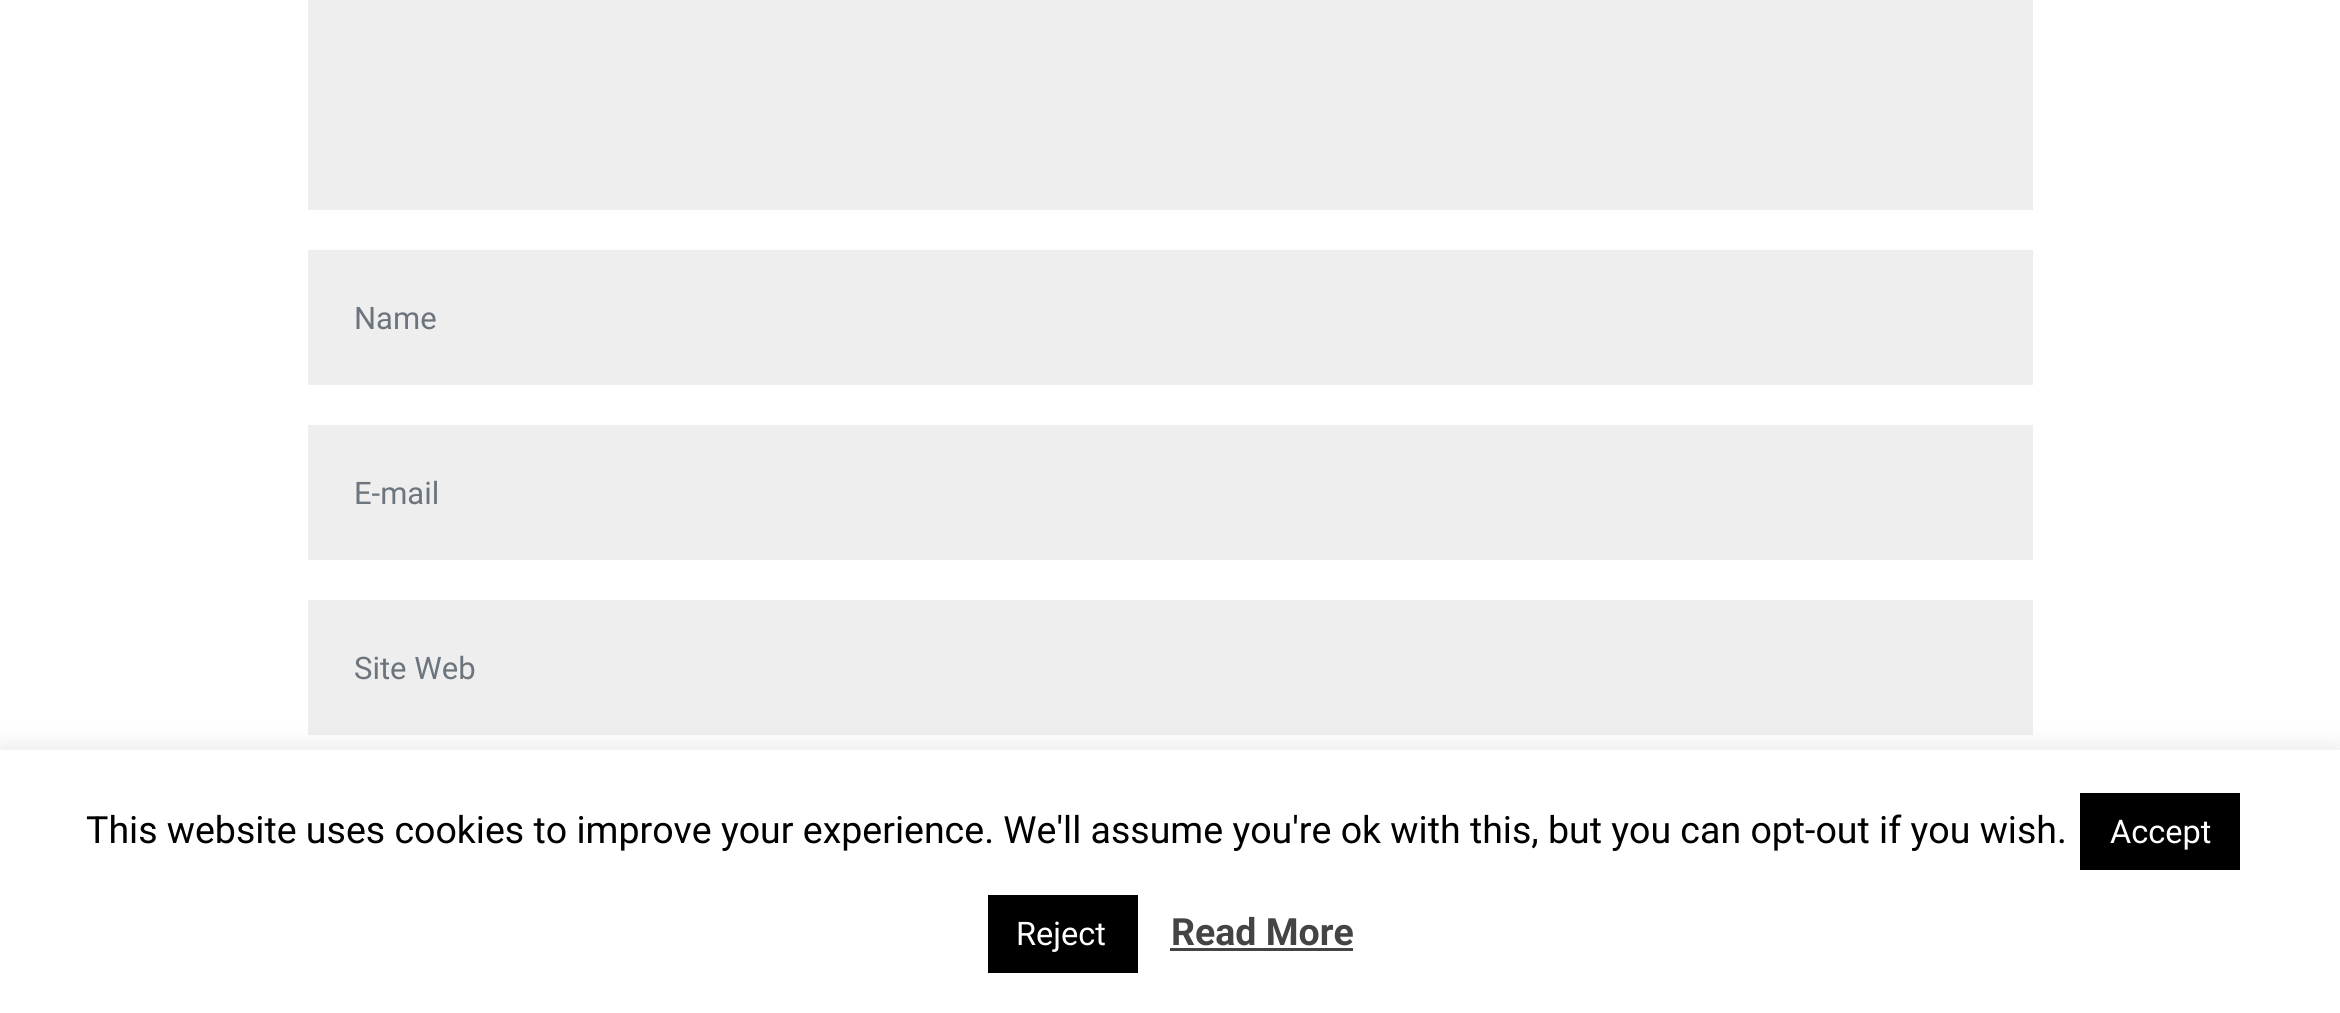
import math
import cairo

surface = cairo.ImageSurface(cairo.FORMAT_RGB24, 2340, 1013)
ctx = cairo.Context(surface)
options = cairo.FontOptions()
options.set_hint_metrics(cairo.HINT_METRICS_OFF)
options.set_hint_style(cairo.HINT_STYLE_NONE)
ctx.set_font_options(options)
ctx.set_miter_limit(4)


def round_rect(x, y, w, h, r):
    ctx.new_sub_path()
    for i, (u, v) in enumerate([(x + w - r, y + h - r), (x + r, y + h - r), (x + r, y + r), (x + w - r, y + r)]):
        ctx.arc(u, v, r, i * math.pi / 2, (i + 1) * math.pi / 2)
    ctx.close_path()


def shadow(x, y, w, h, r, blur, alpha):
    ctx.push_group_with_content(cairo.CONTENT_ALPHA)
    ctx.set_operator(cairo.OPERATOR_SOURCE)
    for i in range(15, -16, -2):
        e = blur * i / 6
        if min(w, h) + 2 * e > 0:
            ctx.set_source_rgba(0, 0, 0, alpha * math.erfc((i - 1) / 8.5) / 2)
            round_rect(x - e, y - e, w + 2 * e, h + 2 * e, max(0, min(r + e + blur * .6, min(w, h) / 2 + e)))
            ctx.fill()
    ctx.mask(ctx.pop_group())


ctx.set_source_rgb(1, 1, 1)
ctx.paint()
ctx.set_source_rgb(0.933, 0.933, 0.933)
ctx.rectangle(309.5, -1.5, 1722, 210)
ctx.fill_preserve()
ctx.set_line_width(3)
ctx.stroke()
ctx.rectangle(309.5, 251.5, 1722, 132)
ctx.fill_preserve()
ctx.stroke()
ctx.select_font_face("Roboto")
ctx.set_font_size(31)
ctx.set_source_rgb(0.424, 0.459, 0.49)
ctx.move_to(354, 329)
ctx.show_text("Name")
ctx.set_source_rgb(0.933, 0.933, 0.933)
ctx.rectangle(309.5, 426.5, 1722, 132)
ctx.fill_preserve()
ctx.stroke()
ctx.set_source_rgb(0.424, 0.459, 0.49)
ctx.move_to(354, 504)
ctx.show_text("E-mail")
ctx.set_source_rgb(0.933, 0.933, 0.933)
ctx.rectangle(309.5, 601.5, 1722, 132)
ctx.fill_preserve()
ctx.stroke()
ctx.set_source_rgb(0.424, 0.459, 0.49)
ctx.move_to(354, 679)
ctx.show_text("Site Web")
ctx.set_source_rgb(0.675, 0.671, 0.671)
shadow(0, 748, 2340, 265, 0, 12.5, 0.3)
ctx.set_source_rgb(1, 1, 1)
ctx.rectangle(0, 750, 2340, 263)
ctx.fill()
ctx.set_font_size(37.5)
ctx.set_source_rgb(0, 0, 0)
ctx.move_to(86, 843)
ctx.show_text("This website uses cookies to improve your experience. We'll assume you're ok with this, but you can opt-out if you wish.")
ctx.rectangle(2080, 793, 160, 77)
ctx.fill()
ctx.set_font_size(32.5)
ctx.set_source_rgb(1, 1, 1)
ctx.move_to(2110, 843)
ctx.show_text("Accept")
ctx.set_source_rgb(0, 0, 0)
ctx.rectangle(988, 895, 150, 78)
ctx.fill()
ctx.set_source_rgb(1, 1, 1)
ctx.move_to(1016, 945)
ctx.show_text("Reject")
ctx.select_font_face("Roboto", cairo.FONT_SLANT_NORMAL, cairo.FONT_WEIGHT_BOLD)
ctx.set_font_size(37.5)
ctx.set_source_rgb(0.267, 0.267, 0.267)
ctx.move_to(1171, 945)
ctx.show_text("Read More")
ctx.rectangle(1170, 948, 183, 3)
ctx.fill()
surface.write_to_png("page.png")
